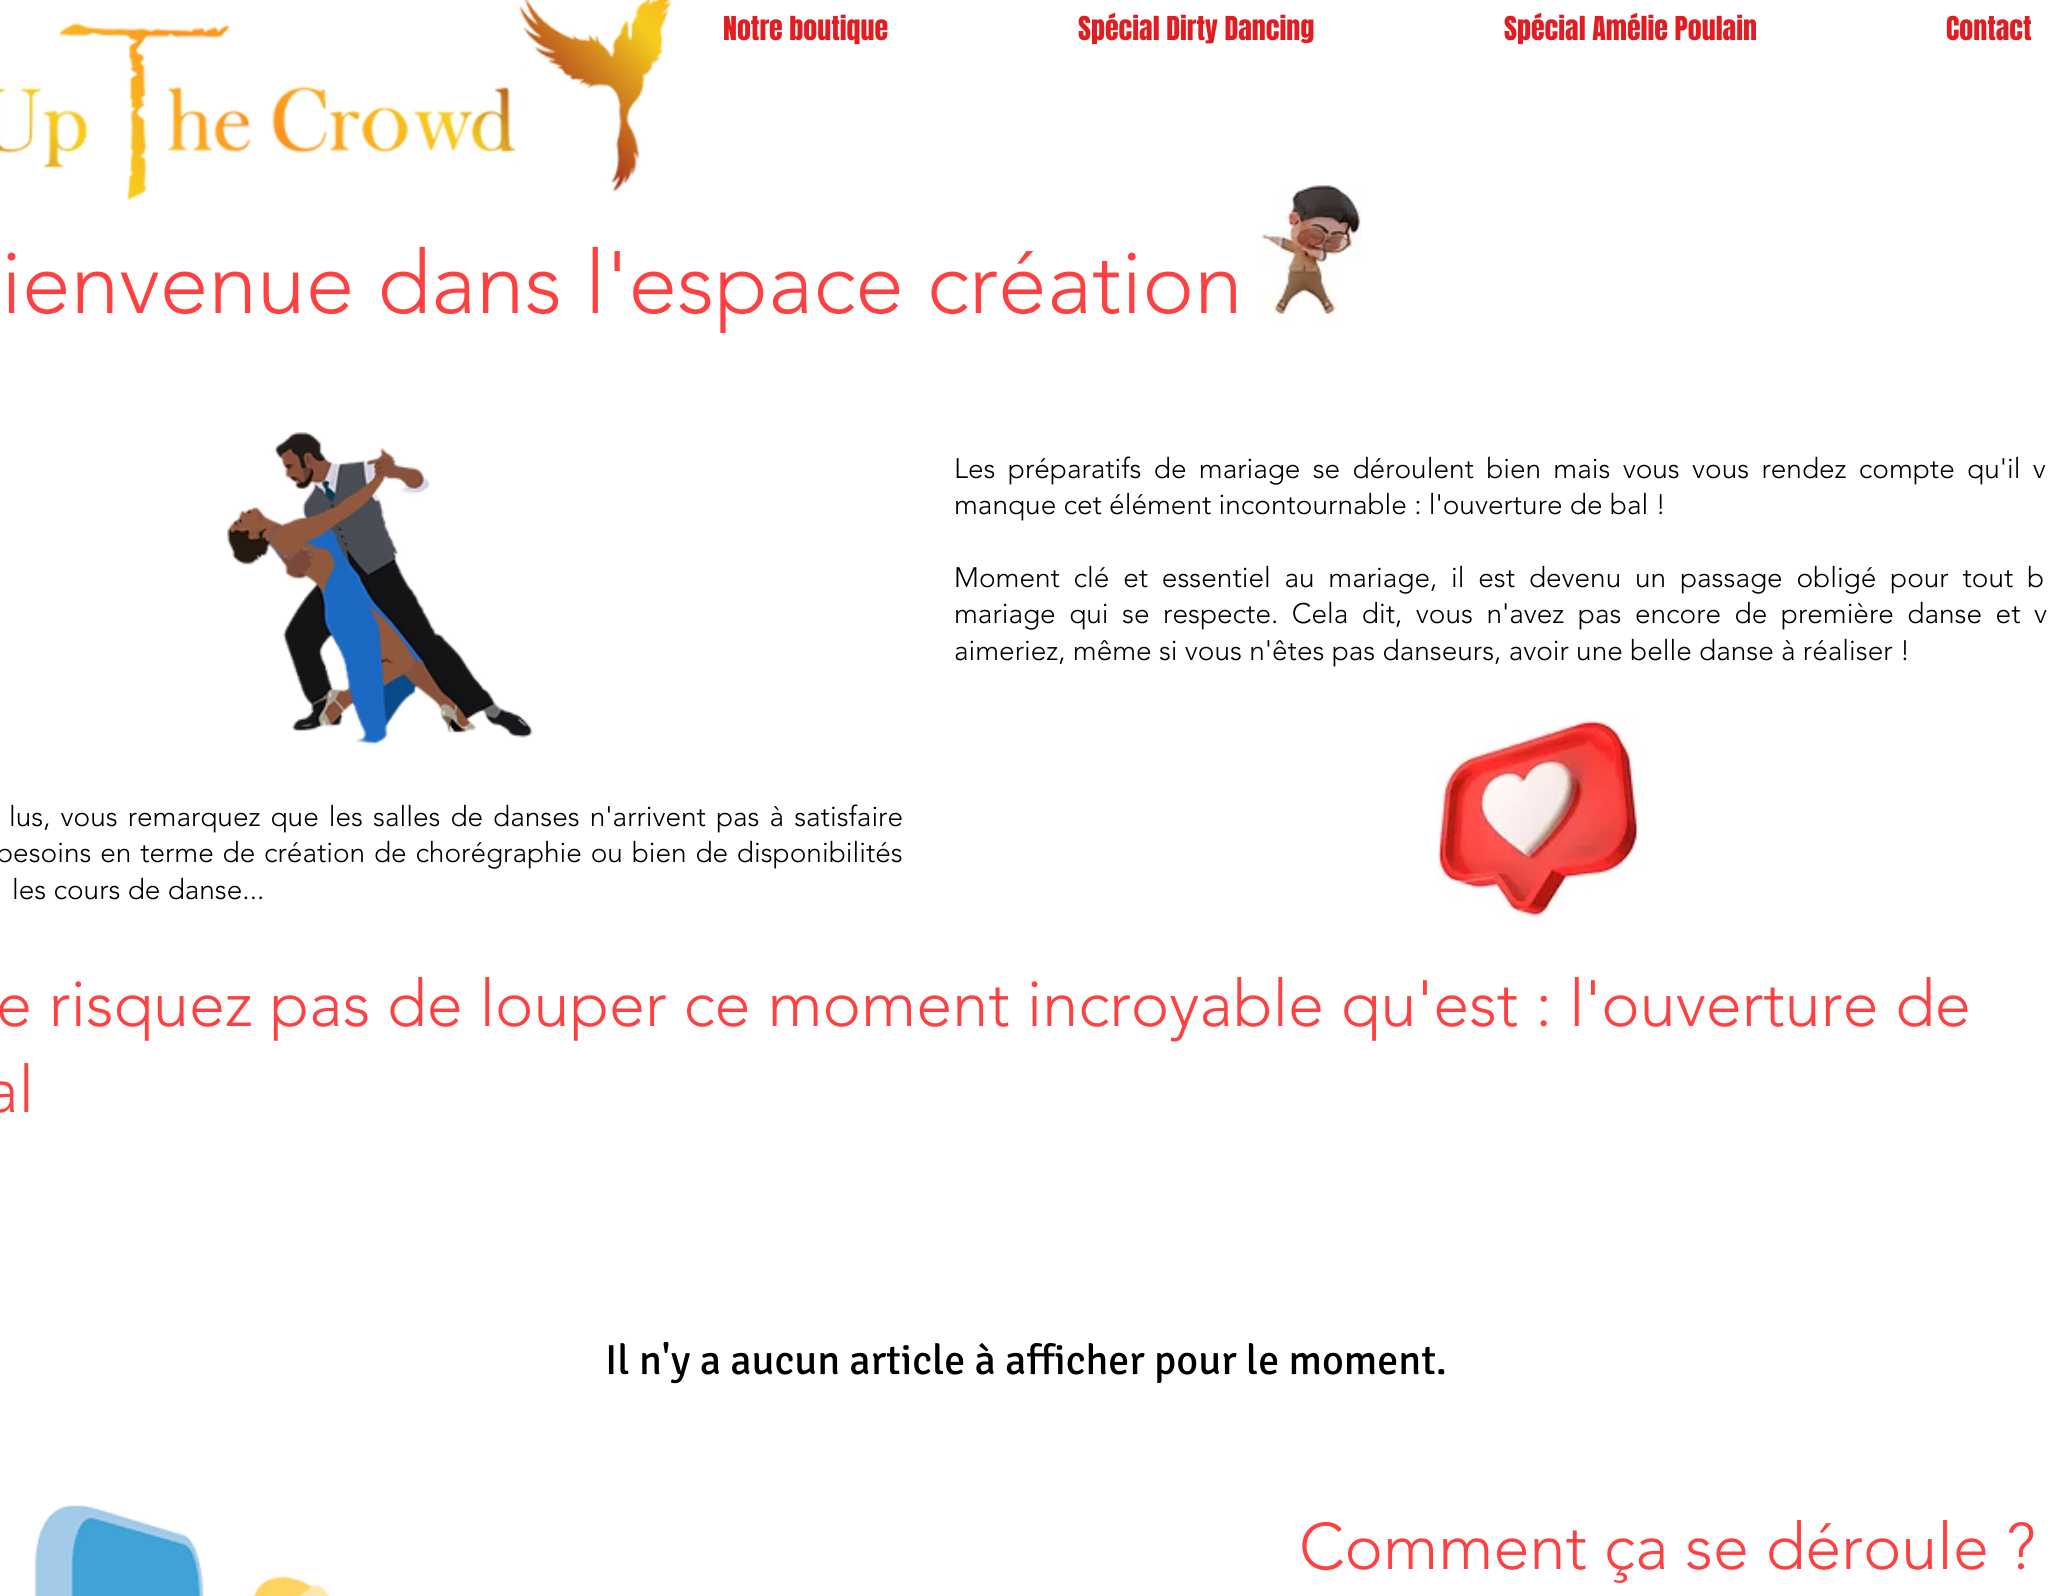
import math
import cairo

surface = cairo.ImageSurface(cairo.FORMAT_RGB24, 2050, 1596)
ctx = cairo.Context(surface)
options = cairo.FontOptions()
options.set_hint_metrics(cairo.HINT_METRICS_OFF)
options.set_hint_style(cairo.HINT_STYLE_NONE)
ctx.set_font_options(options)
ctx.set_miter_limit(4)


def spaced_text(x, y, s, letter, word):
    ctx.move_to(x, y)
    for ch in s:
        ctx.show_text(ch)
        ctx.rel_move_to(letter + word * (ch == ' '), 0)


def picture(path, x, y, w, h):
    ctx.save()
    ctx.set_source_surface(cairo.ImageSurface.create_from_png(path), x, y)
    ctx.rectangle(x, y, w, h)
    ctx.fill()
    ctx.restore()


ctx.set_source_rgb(1, 1, 1)
ctx.paint()
picture("img1.png", 0, 0, 673, 201)
ctx.select_font_face("Anton")
ctx.set_font_size(28)
ctx.set_source_rgb(0.886, 0.11, 0.129)
ctx.move_to(723, 40)
ctx.show_text("Notre boutique")
ctx.move_to(1078, 40)
ctx.show_text("Spécial Dirty Dancing")
ctx.move_to(1504, 40)
ctx.show_text("Spécial Amélie Poulain")
ctx.move_to(1946, 40)
ctx.show_text("Contact")
ctx.select_font_face("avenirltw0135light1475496 Light")
ctx.set_font_size(87.5)
ctx.set_source_rgb(1, 0.251, 0.251)
ctx.move_to(1, 313)
ctx.show_text("ienvenue dans l'espace création")
picture("img2.png", 1257, 184, 105, 140)
picture("img3.png", 227, 432, 306, 313)
ctx.set_font_size(28)
ctx.set_source_rgb(0, 0, 0)
spaced_text(954, 478, "Les préparatifs de mariage se déroulent bien mais vous vous rendez compte qu'il v", 0, 5)
ctx.move_to(954, 514)
ctx.show_text("manque cet élément incontournable : l'ouverture de bal !")
spaced_text(954, 587, "Moment clé et essentiel au mariage, il est devenu un passage obligé pour tout b", 0, 6.5)
spaced_text(954, 623, "mariage qui se respecte. Cela dit, vous n'avez pas encore de première danse et v", 0, 6.25)
ctx.move_to(954, 660)
ctx.show_text("aimeriez, même si vous n'êtes pas danseurs, avoir une belle danse à réaliser !")
spaced_text(9, 826, "lus, vous remarquez que les salles de danses n'arrivent pas à satisfaire", 0, 2.75)
spaced_text(-4, 862, "besoins en terme de création de chorégraphie ou bien de disponibilités", 0, 1.5)
ctx.move_to(12, 899)
ctx.show_text("les cours de danse...")
picture("img4.png", 1436, 713, 211, 210)
ctx.set_font_size(64.75)
ctx.set_source_rgb(1, 0.251, 0.251)
ctx.move_to(-4, 1026)
ctx.show_text("e risquez pas de louper ce moment incroyable qu'est : l'ouverture de")
ctx.move_to(-15, 1112)
ctx.show_text("al")
ctx.select_font_face("Signika")
ctx.set_font_size(42)
ctx.set_source_rgb(0, 0, 0)
ctx.move_to(605, 1374)
ctx.show_text("Il n'y a aucun article à afficher pour le moment.")
picture("img5.png", 34, 1505, 296, 91)
ctx.select_font_face("avenirltw0135light1475496 Light")
ctx.set_font_size(64.75)
ctx.set_source_rgb(1, 0.251, 0.251)
ctx.move_to(1299, 1569)
ctx.show_text("Comment ça se déroule ?")
surface.write_to_png("page.png")
